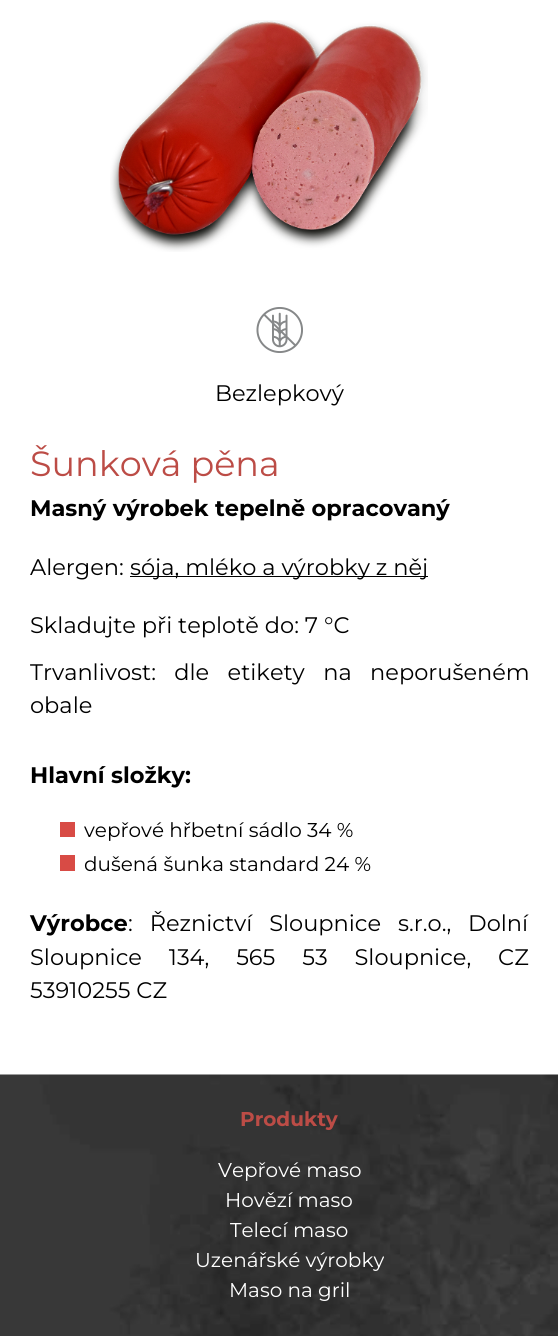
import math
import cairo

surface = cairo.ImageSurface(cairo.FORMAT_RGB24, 558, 1336)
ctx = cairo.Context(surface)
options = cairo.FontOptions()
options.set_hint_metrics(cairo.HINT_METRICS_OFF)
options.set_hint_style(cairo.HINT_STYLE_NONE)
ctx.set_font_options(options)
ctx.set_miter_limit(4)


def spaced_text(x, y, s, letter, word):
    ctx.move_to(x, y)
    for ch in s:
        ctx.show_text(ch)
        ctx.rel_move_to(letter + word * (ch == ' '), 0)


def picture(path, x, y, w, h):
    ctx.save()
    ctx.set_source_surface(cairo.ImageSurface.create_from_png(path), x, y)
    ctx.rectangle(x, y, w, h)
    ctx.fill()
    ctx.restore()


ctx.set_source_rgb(1, 1, 1)
ctx.paint()
picture("img1.png", 110, 20, 318, 232)
picture("img2.png", 256, 307, 47, 46)
ctx.select_font_face("Montserrat")
ctx.set_font_size(22.5)
ctx.set_source_rgb(0, 0, 0)
ctx.move_to(215, 401)
ctx.show_text("Bezlepkový")
ctx.set_font_size(35)
ctx.set_source_rgb(0.737, 0.298, 0.275)
ctx.move_to(30, 476)
ctx.show_text("Šunková pěna")
ctx.select_font_face("Montserrat", cairo.FONT_SLANT_NORMAL, cairo.FONT_WEIGHT_BOLD)
ctx.set_font_size(22.5)
ctx.set_source_rgb(0, 0, 0)
ctx.move_to(30, 516)
ctx.show_text("Masný výrobek tepelně opracovaný")
ctx.select_font_face("Montserrat")
ctx.move_to(30, 575)
ctx.show_text("Alergen:")
ctx.rectangle(130, 576, 298, 1)
ctx.fill()
ctx.move_to(130, 575)
ctx.show_text("sója, mléko a výrobky z něj")
ctx.move_to(30, 633)
ctx.show_text("Skladujte při teplotě do: 7 °C")
spaced_text(30, 680, "Trvanlivost: dle etikety na neporušeném", 0, 12.5)
ctx.move_to(30, 713)
ctx.show_text("obale")
ctx.select_font_face("Montserrat", cairo.FONT_SLANT_NORMAL, cairo.FONT_WEIGHT_BOLD)
ctx.move_to(30, 783)
ctx.show_text("Hlavní složky:")
ctx.set_source_rgb(0.847, 0.294, 0.271)
ctx.rectangle(60, 822, 15, 15)
ctx.fill()
ctx.select_font_face("Montserrat")
ctx.set_font_size(20)
ctx.set_source_rgb(0, 0, 0)
ctx.move_to(84, 837)
ctx.show_text("vepřové hřbetní sádlo 34 %")
ctx.set_source_rgb(0.847, 0.294, 0.271)
ctx.rectangle(60, 855, 15, 16)
ctx.fill()
ctx.set_source_rgb(0, 0, 0)
ctx.move_to(84, 871)
ctx.show_text("dušená šunka standard 24 %")
ctx.select_font_face("Montserrat", cairo.FONT_SLANT_NORMAL, cairo.FONT_WEIGHT_BOLD)
ctx.set_font_size(22.5)
ctx.move_to(30, 931)
ctx.show_text("Výrobce")
ctx.select_font_face("Montserrat")
spaced_text(128, 931, ": Řeznictví Sloupnice s.r.o., Dolní", 0, 11)
spaced_text(30, 965, "Sloupnice 134, 565 53 Sloupnice, CZ", 0, 21)
ctx.move_to(30, 998)
ctx.show_text("53910255 CZ")
picture("img3.png", 0, 1074, 558, 262)
ctx.select_font_face("Montserrat", cairo.FONT_SLANT_NORMAL, cairo.FONT_WEIGHT_BOLD)
ctx.set_font_size(20)
ctx.set_source_rgb(0.737, 0.298, 0.275)
ctx.move_to(240, 1126)
ctx.show_text("Produkty")
ctx.select_font_face("Montserrat")
ctx.set_source_rgb(1, 1, 1)
ctx.move_to(218, 1177)
ctx.show_text("Vepřové maso")
ctx.move_to(225, 1207)
ctx.show_text("Hovězí maso")
ctx.move_to(230, 1237)
ctx.show_text("Telecí maso")
ctx.move_to(195, 1267)
ctx.show_text("Uzenářské výrobky")
ctx.move_to(229, 1297)
ctx.show_text("Maso na gril")
surface.write_to_png("page.png")
